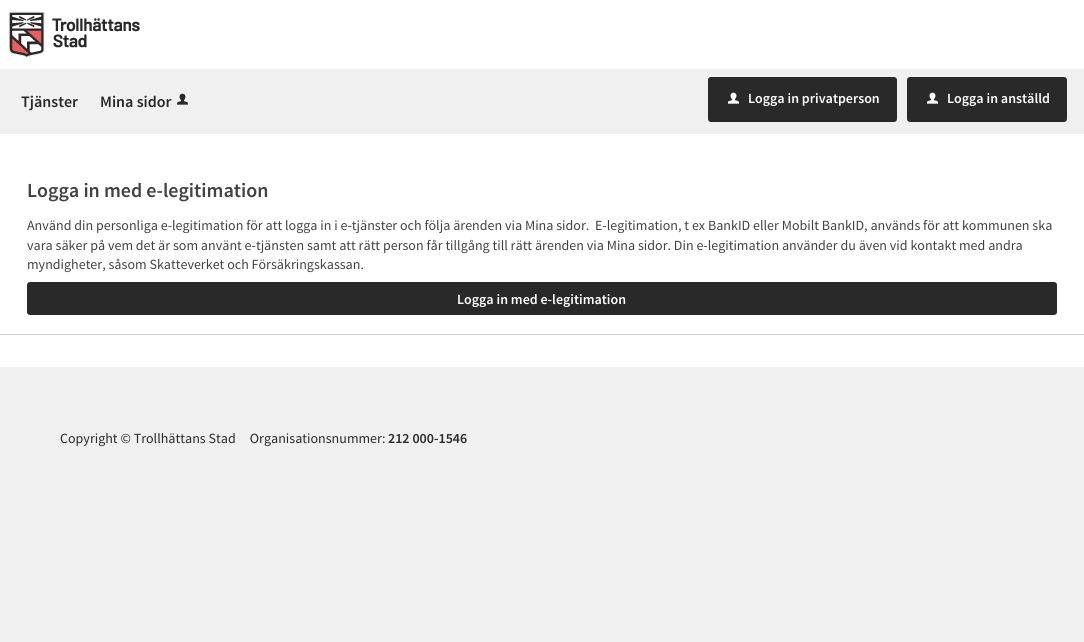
import math
import cairo

surface = cairo.ImageSurface(cairo.FORMAT_RGB24, 1084, 642)
ctx = cairo.Context(surface)
options = cairo.FontOptions()
options.set_hint_metrics(cairo.HINT_METRICS_OFF)
options.set_hint_style(cairo.HINT_STYLE_NONE)
ctx.set_font_options(options)
ctx.set_miter_limit(4)


def round_rect(x, y, w, h, r):
    ctx.new_sub_path()
    for i, (u, v) in enumerate([(x + w - r, y + h - r), (x + r, y + h - r), (x + r, y + r), (x + w - r, y + r)]):
        ctx.arc(u, v, r, i * math.pi / 2, (i + 1) * math.pi / 2)
    ctx.close_path()


def picture(path, x, y, w, h):
    ctx.save()
    ctx.set_source_surface(cairo.ImageSurface.create_from_png(path), x, y)
    ctx.rectangle(x, y, w, h)
    ctx.fill()
    ctx.restore()


ctx.set_source_rgb(1, 1, 1)
ctx.paint()
picture("img1.png", 9, 11, 131, 47)
ctx.set_source_rgb(0.941, 0.941, 0.941)
ctx.rectangle(0, 69, 1084, 65)
ctx.fill()
ctx.select_font_face("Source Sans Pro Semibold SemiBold")
ctx.set_font_size(16)
ctx.set_source_rgb(0.161, 0.161, 0.161)
ctx.move_to(21, 107)
ctx.show_text("Tjänster")
ctx.move_to(100, 107)
ctx.show_text("Mina sidor")
picture("img2.png", 177, 93, 11, 12)
round_rect(708, 77, 189, 45, 3)
ctx.fill()
picture("img3.png", 728, 92, 11, 12)
ctx.set_font_size(14)
ctx.set_source_rgb(1, 1, 1)
ctx.move_to(748, 103)
ctx.show_text("Logga in privatperson")
ctx.set_source_rgb(0.161, 0.161, 0.161)
round_rect(907, 77, 160, 45, 3)
ctx.fill()
picture("img3.png", 927, 92, 11, 12)
ctx.set_source_rgb(1, 1, 1)
ctx.move_to(947, 103)
ctx.show_text("Logga in anställd")
ctx.set_source_rgb(0.812, 0.812, 0.812)
ctx.rectangle(0, 334, 1084, 1)
ctx.fill()
ctx.set_font_size(20)
ctx.set_source_rgb(0.259, 0.259, 0.259)
ctx.move_to(27, 197)
ctx.show_text("Logga in med e-legitimation")
ctx.select_font_face("Source Sans Pro")
ctx.set_font_size(14)
ctx.move_to(27, 230)
ctx.show_text("Använd din personliga e-legitimation för att logga in i e-tjänster och följa ärenden via Mina sidor.  E-legitimation, t ex BankID eller Mobilt BankID, används för att kommunen ska")
ctx.move_to(27, 250)
ctx.show_text("vara säker på vem det är som använt e-tjänsten samt att rätt person får tillgång till rätt ärenden via Mina sidor. Din e-legitimation använder du även vid kontakt med andra")
ctx.move_to(27, 269)
ctx.show_text("myndigheter, såsom Skatteverket och Försäkringskassan.")
ctx.set_source_rgb(0.161, 0.161, 0.161)
round_rect(27, 282, 1030, 33, 3)
ctx.fill()
ctx.select_font_face("Source Sans Pro Semibold SemiBold")
ctx.set_source_rgb(1, 1, 1)
ctx.move_to(457, 304)
ctx.show_text("Logga in med e-legitimation")
ctx.set_source_rgb(0.941, 0.941, 0.941)
ctx.new_path()
ctx.move_to(-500, 367)
ctx.line_to(-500, 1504)
ctx.line_to(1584, 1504)
ctx.line_to(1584, 367)
ctx.line_to(1084, 367)
ctx.line_to(1084, 504)
ctx.line_to(0, 504)
ctx.line_to(0, 367)
ctx.close_path()
ctx.fill()
ctx.rectangle(0, 367, 1084, 137)
ctx.fill()
ctx.select_font_face("Source Sans Pro")
ctx.set_source_rgb(0.161, 0.161, 0.161)
ctx.move_to(60, 443)
ctx.show_text("Copyright © Trollhättans Stad     Organisationsnummer:")
ctx.select_font_face("Source Sans Pro Semibold SemiBold")
ctx.move_to(388, 443)
ctx.show_text("212 000-1546")
surface.write_to_png("page.png")
